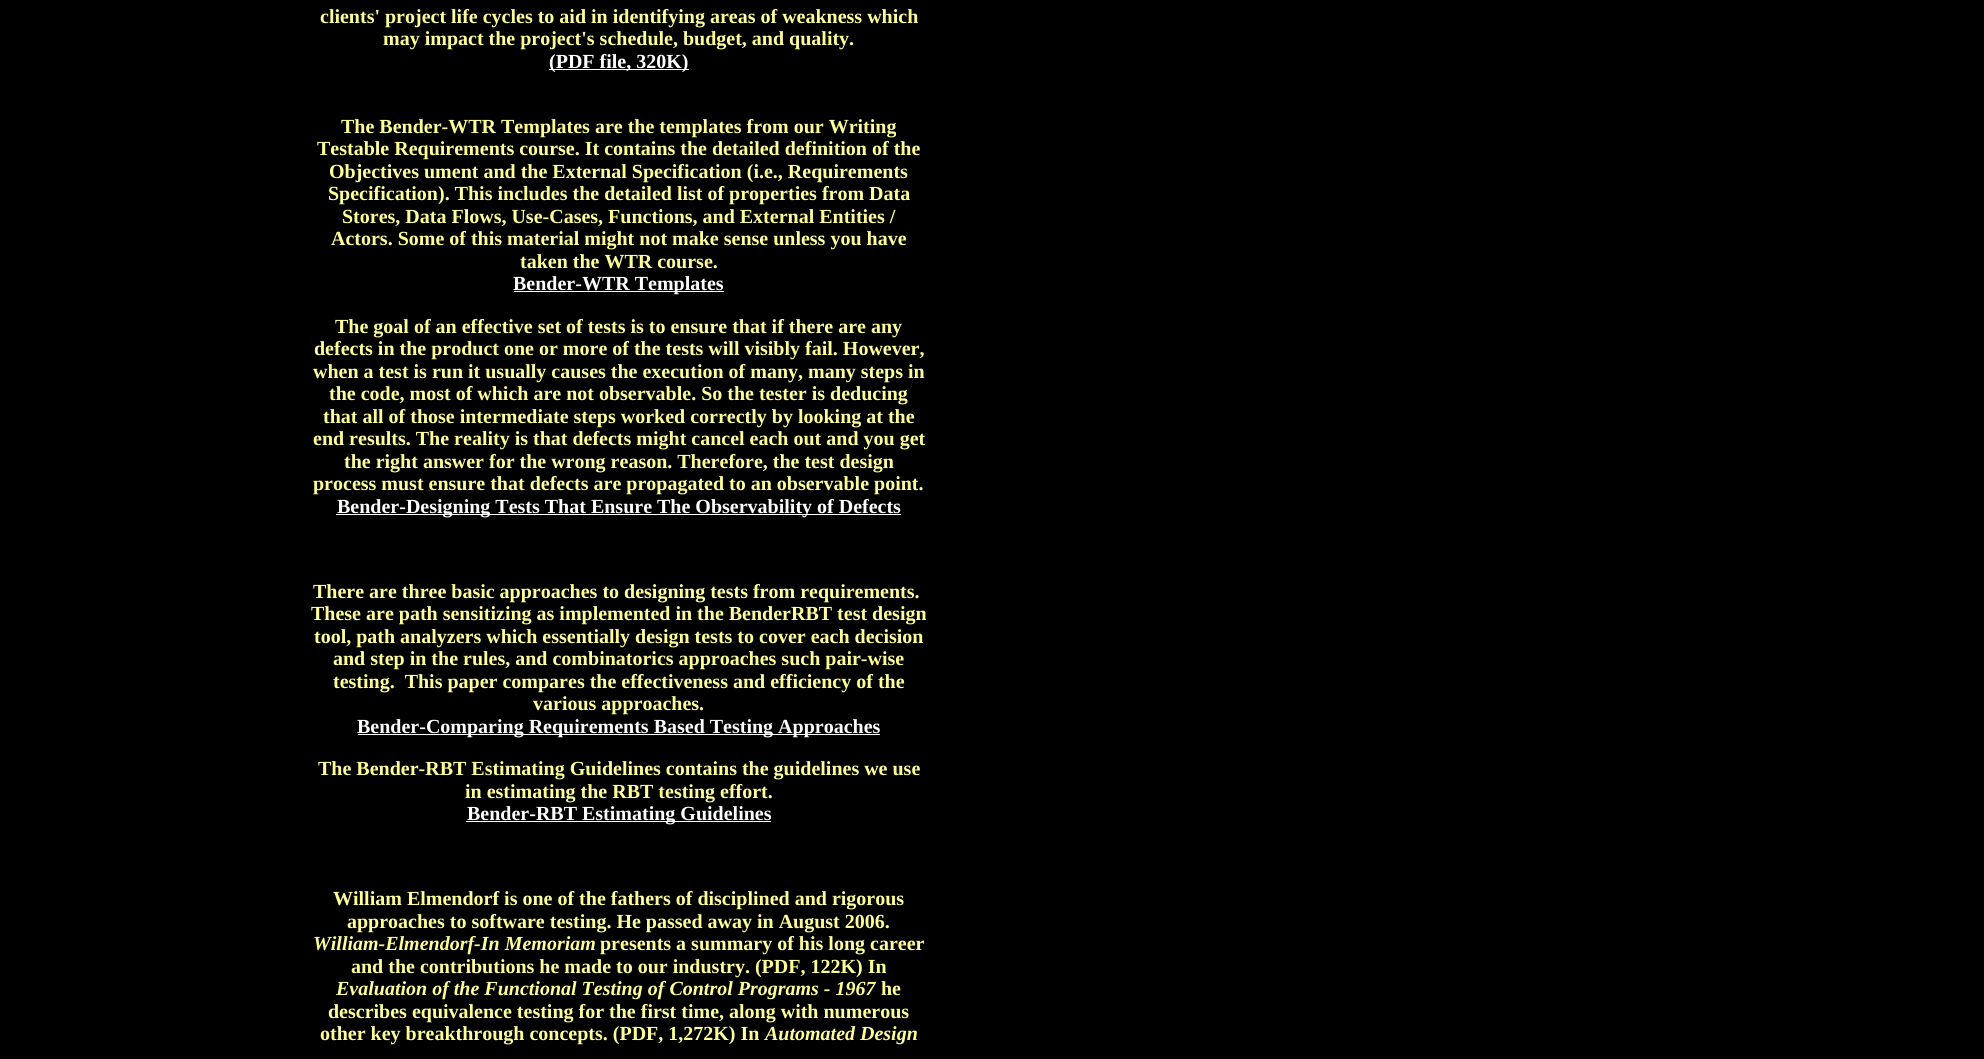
import math
import cairo

surface = cairo.ImageSurface(cairo.FORMAT_RGB24, 1984, 1059)
ctx = cairo.Context(surface)
options = cairo.FontOptions()
options.set_hint_metrics(cairo.HINT_METRICS_OFF)
options.set_hint_style(cairo.HINT_STYLE_NONE)
ctx.set_font_options(options)
ctx.set_miter_limit(4)


ctx.set_source_rgb(0, 0, 0)
ctx.paint()
ctx.select_font_face("Liberation Serif", cairo.FONT_SLANT_NORMAL, cairo.FONT_WEIGHT_BOLD)
ctx.set_font_size(20)
ctx.set_source_rgb(1, 1, 0.6)
ctx.move_to(320, 23)
ctx.show_text("clients' project life cycles to aid in identifying areas of weakness which")
ctx.move_to(383, 45)
ctx.show_text("may impact the project's schedule, budget, and quality.")
ctx.set_source_rgb(1, 1, 1)
ctx.rectangle(549, 69, 140, 1)
ctx.fill()
ctx.move_to(549, 68)
ctx.show_text("(PDF file, 320K)")
ctx.set_source_rgb(1, 1, 0.6)
ctx.move_to(341, 133)
ctx.show_text("The Bender-WTR Templates are the templates from our Writing")
ctx.move_to(317, 155)
ctx.show_text("Testable Requirements course. It contains the detailed definition of the")
ctx.move_to(329, 178)
ctx.show_text("Objectives ument and the External Specification (i.e., Requirements")
ctx.move_to(328, 200)
ctx.show_text("Specification). This includes the detailed list of properties from Data")
ctx.move_to(342, 223)
ctx.show_text("Stores, Data Flows, Use-Cases, Functions, and External Entities /")
ctx.move_to(331, 245)
ctx.show_text("Actors. Some of this material might not make sense unless you have")
ctx.move_to(520, 268)
ctx.show_text("taken the WTR course.")
ctx.set_source_rgb(1, 1, 1)
ctx.rectangle(514, 291, 210, 1)
ctx.fill()
ctx.move_to(513, 290)
ctx.show_text("Bender-WTR Templates")
ctx.set_source_rgb(1, 1, 0.6)
ctx.move_to(335, 333)
ctx.show_text("The goal of an effective set of tests is to ensure that if there are any")
ctx.move_to(314, 355)
ctx.show_text("defects in the product one or more of the tests will visibly fail. However,")
ctx.move_to(313, 378)
ctx.show_text("when a test is run it usually causes the execution of many, many steps in")
ctx.move_to(329, 400)
ctx.show_text("the code, most of which are not observable. So the tester is deducing")
ctx.move_to(323, 423)
ctx.show_text("that all of those intermediate steps worked correctly by looking at the")
ctx.move_to(313, 445)
ctx.show_text("end results. The reality is that defects might cancel each out and you get")
ctx.move_to(344, 468)
ctx.show_text("the right answer for the wrong reason. Therefore, the test design")
ctx.move_to(313, 490)
ctx.show_text("process must ensure that defects are propagated to an observable point.")
ctx.set_source_rgb(1, 1, 1)
ctx.rectangle(336, 514, 565, 1)
ctx.fill()
ctx.move_to(337, 513)
ctx.show_text("Bender-Designing Tests That Ensure The Observability of Defects")
ctx.set_source_rgb(1, 1, 0.6)
ctx.move_to(313, 598)
ctx.show_text("There are three basic approaches to designing tests from requirements.")
ctx.move_to(311, 620)
ctx.show_text("These are path sensitizing as implemented in the BenderRBT test design")
ctx.move_to(314, 643)
ctx.show_text("tool, path analyzers which essentially design tests to cover each decision")
ctx.move_to(333, 665)
ctx.show_text("and step in the rules, and combinatorics approaches such pair-wise")
ctx.move_to(333, 688)
ctx.show_text("testing.  This paper compares the effectiveness and efficiency of the")
ctx.move_to(533, 710)
ctx.show_text("various approaches.")
ctx.set_source_rgb(1, 1, 1)
ctx.rectangle(358, 734, 522, 1)
ctx.fill()
ctx.move_to(357, 733)
ctx.show_text("Bender-Comparing Requirements Based Testing Approaches")
ctx.set_source_rgb(1, 1, 0.6)
ctx.move_to(318, 775)
ctx.show_text("The Bender-RBT Estimating Guidelines contains the guidelines we use")
ctx.move_to(465, 798)
ctx.show_text("in estimating the RBT testing effort.")
ctx.set_source_rgb(1, 1, 1)
ctx.rectangle(466, 821, 305, 1)
ctx.fill()
ctx.move_to(467, 820)
ctx.show_text("Bender-RBT Estimating Guidelines")
ctx.set_source_rgb(1, 1, 0.6)
ctx.move_to(333, 905)
ctx.show_text("William Elmendorf is one of the fathers of disciplined and rigorous")
ctx.move_to(347, 928)
ctx.show_text("approaches to software testing. He passed away in August 2006.")
ctx.select_font_face("Liberation Serif", cairo.FONT_SLANT_ITALIC, cairo.FONT_WEIGHT_BOLD)
ctx.move_to(313, 950)
ctx.show_text("William-Elmendorf-In Memoriam")
ctx.select_font_face("Liberation Serif", cairo.FONT_SLANT_NORMAL, cairo.FONT_WEIGHT_BOLD)
ctx.move_to(600, 950)
ctx.show_text("presents a summary of his long career")
ctx.move_to(351, 973)
ctx.show_text("and the contributions he made to our industry. (PDF, 122K) In")
ctx.select_font_face("Liberation Serif", cairo.FONT_SLANT_ITALIC, cairo.FONT_WEIGHT_BOLD)
ctx.move_to(336, 995)
ctx.show_text("Evaluation of the Functional Testing of Control Programs - 1967")
ctx.select_font_face("Liberation Serif", cairo.FONT_SLANT_NORMAL, cairo.FONT_WEIGHT_BOLD)
ctx.move_to(881, 995)
ctx.show_text("he")
ctx.move_to(328, 1018)
ctx.show_text("describes equivalence testing for the first time, along with numerous")
ctx.move_to(320, 1040)
ctx.show_text("other key breakthrough concepts. (PDF, 1,272K) In")
ctx.select_font_face("Liberation Serif", cairo.FONT_SLANT_ITALIC, cairo.FONT_WEIGHT_BOLD)
ctx.move_to(765, 1040)
ctx.show_text("Automated Design")
surface.write_to_png("page.png")
